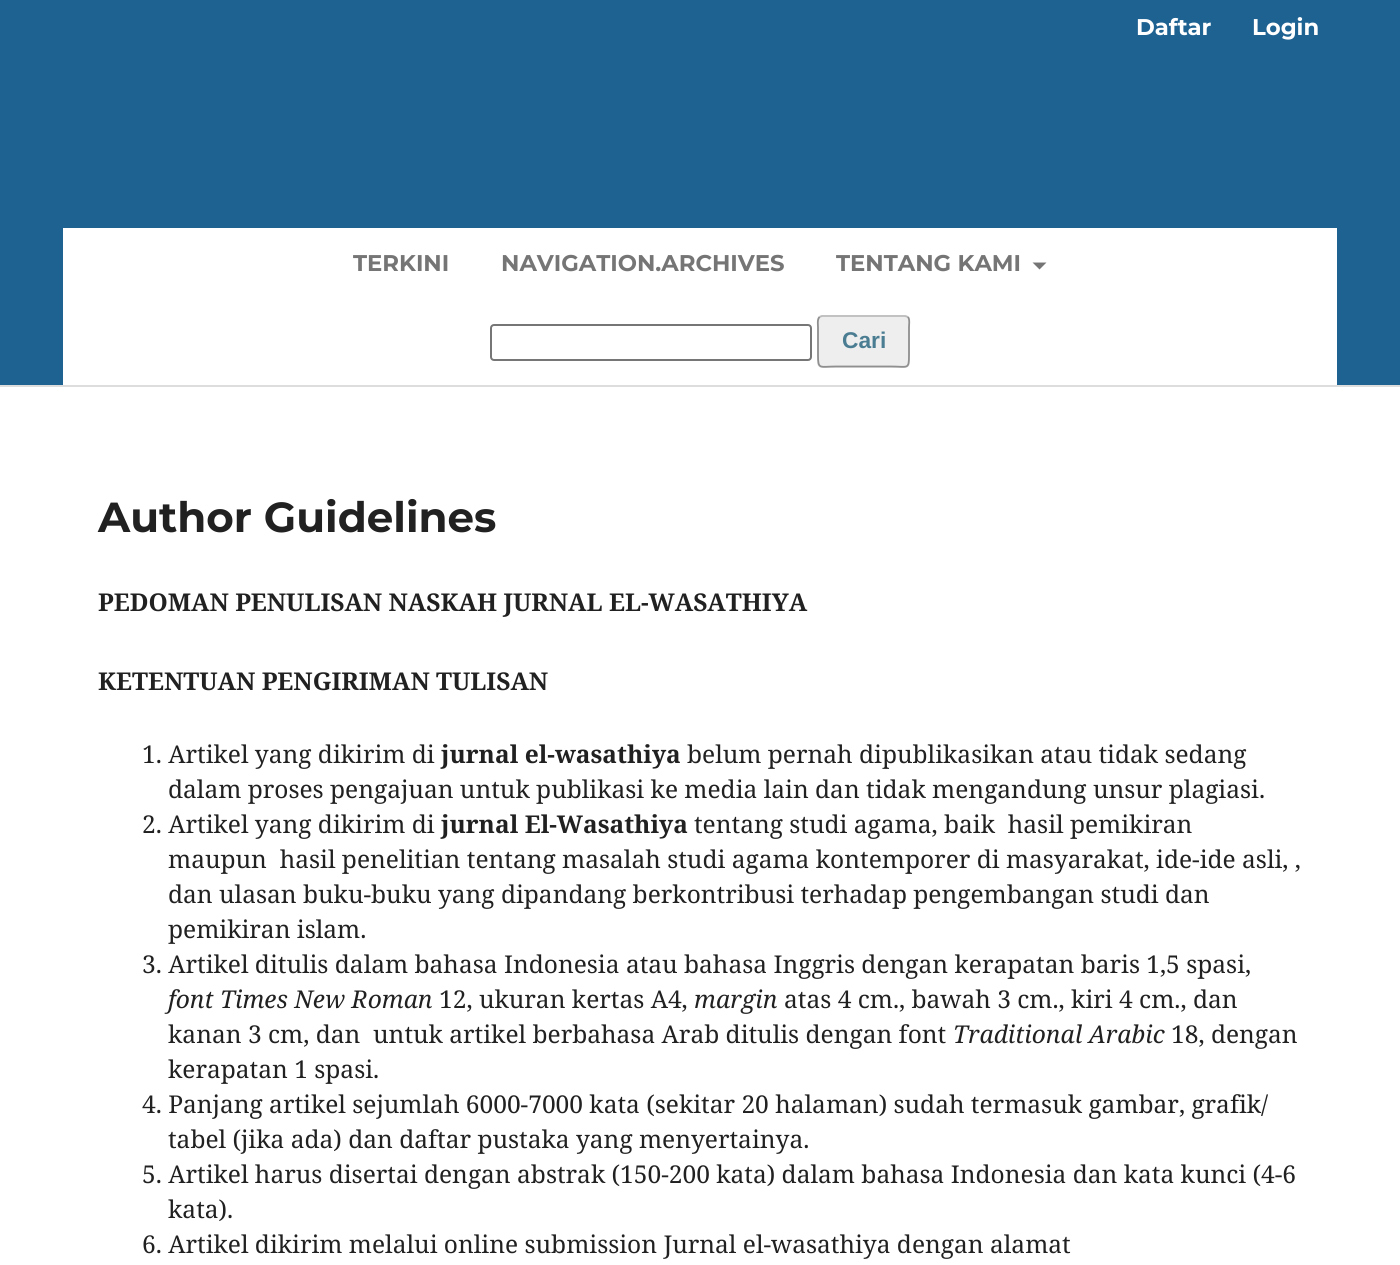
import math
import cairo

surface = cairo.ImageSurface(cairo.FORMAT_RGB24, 1400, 1265)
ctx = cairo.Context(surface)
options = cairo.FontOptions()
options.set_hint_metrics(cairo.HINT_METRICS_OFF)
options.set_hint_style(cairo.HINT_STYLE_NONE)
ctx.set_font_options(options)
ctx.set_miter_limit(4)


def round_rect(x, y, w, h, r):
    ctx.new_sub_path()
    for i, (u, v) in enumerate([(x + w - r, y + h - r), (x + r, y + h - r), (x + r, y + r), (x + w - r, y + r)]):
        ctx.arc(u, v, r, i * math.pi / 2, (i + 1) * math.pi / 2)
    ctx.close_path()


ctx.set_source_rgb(1, 1, 1)
ctx.paint()
ctx.set_source_rgb(0.118, 0.384, 0.573)
ctx.rectangle(0, 0, 1400, 385)
ctx.fill()
ctx.set_source_rgb(0.867, 0.867, 0.867)
ctx.rectangle(0, 385, 1400, 2)
ctx.fill()
ctx.select_font_face("Montserrat", cairo.FONT_SLANT_NORMAL, cairo.FONT_WEIGHT_BOLD)
ctx.set_font_size(22.75)
ctx.set_source_rgb(1, 1, 1)
ctx.move_to(1136, 35)
ctx.show_text("Daftar")
ctx.move_to(1252, 35)
ctx.show_text("Login")
ctx.rectangle(63, 228, 1274, 157)
ctx.fill()
ctx.set_source_rgb(0.459, 0.459, 0.459)
ctx.move_to(353, 271)
ctx.show_text("TERKINI")
ctx.move_to(501, 271)
ctx.show_text("NAVIGATION.ARCHIVES")
ctx.move_to(836, 271)
ctx.show_text("TENTANG KAMI")
ctx.new_path()
ctx.move_to(1032.5, 262.5)
ctx.line_to(1046.5, 262.5)
ctx.line_to(1039.5, 269.5)
ctx.close_path()
ctx.fill()
round_rect(491, 325, 320, 35, 3)
ctx.set_source_rgb(0.463, 0.463, 0.463)
ctx.stroke()
ctx.set_source_rgb(0.933, 0.933, 0.933)
round_rect(817, 315, 93, 53, 5)
ctx.fill()
ctx.new_path()
ctx.move_to(819.5, 317)
ctx.line_to(822, 316)
ctx.line_to(905, 316)
ctx.line_to(908, 317)
ctx.set_source_rgb(0.733, 0.733, 0.733)
ctx.set_line_width(1.8)
ctx.stroke()
ctx.new_path()
ctx.move_to(908, 317)
ctx.curve_to(910, 319.5, 909, 325, 909, 327)
ctx.line_to(909, 355)
ctx.curve_to(909, 370, 908, 366.5, 891, 366.5)
ctx.line_to(836, 366.5)
ctx.curve_to(819.5, 366.5, 818, 370, 818, 355)
ctx.line_to(818, 327)
ctx.curve_to(818, 325, 817, 319.5, 819.5, 317)
ctx.set_source_rgba(0, 0, 0, 0.4)
ctx.stroke()
ctx.select_font_face("Liberation Sans", cairo.FONT_SLANT_NORMAL, cairo.FONT_WEIGHT_BOLD)
ctx.set_source_rgb(0.294, 0.49, 0.573)
ctx.move_to(842, 348)
ctx.show_text("Cari")
ctx.select_font_face("Montserrat", cairo.FONT_SLANT_NORMAL, cairo.FONT_WEIGHT_BOLD)
ctx.set_font_size(42)
ctx.set_source_rgb(0.129, 0.129, 0.129)
ctx.move_to(98, 532)
ctx.show_text("Author Guidelines")
ctx.select_font_face("Noto Serif", cairo.FONT_SLANT_NORMAL, cairo.FONT_WEIGHT_BOLD)
ctx.set_font_size(24.5)
ctx.move_to(98, 611)
ctx.show_text("PEDOMAN PENULISAN NASKAH JURNAL EL-WASATHIYA")
ctx.move_to(98, 690)
ctx.show_text("KETENTUAN PENGIRIMAN TULISAN")
ctx.select_font_face("Noto Serif")
ctx.move_to(142, 763)
ctx.show_text("1. Artikel yang dikirim di")
ctx.select_font_face("Noto Serif", cairo.FONT_SLANT_NORMAL, cairo.FONT_WEIGHT_BOLD)
ctx.move_to(441, 763)
ctx.show_text("jurnal el-wasathiya")
ctx.select_font_face("Noto Serif")
ctx.move_to(687, 763)
ctx.show_text("belum pernah dipublikasikan atau tidak sedang")
ctx.move_to(168, 798)
ctx.show_text("dalam proses pengajuan untuk publikasi ke media lain dan tidak mengandung unsur plagiasi.")
ctx.move_to(142, 833)
ctx.show_text("2. Artikel yang dikirim di")
ctx.select_font_face("Noto Serif", cairo.FONT_SLANT_NORMAL, cairo.FONT_WEIGHT_BOLD)
ctx.move_to(441, 833)
ctx.show_text("jurnal El-Wasathiya")
ctx.select_font_face("Noto Serif")
ctx.move_to(694, 833)
ctx.show_text("tentang studi agama, baik  hasil pemikiran")
ctx.move_to(168, 868)
ctx.show_text("maupun  hasil penelitian tentang masalah studi agama kontemporer di masyarakat, ide-ide asli, ,")
ctx.move_to(168, 903)
ctx.show_text("dan ulasan buku-buku yang dipandang berkontribusi terhadap pengembangan studi dan")
ctx.move_to(168, 938)
ctx.show_text("pemikiran islam.")
ctx.move_to(142, 973)
ctx.show_text("3. Artikel ditulis dalam bahasa Indonesia atau bahasa Inggris dengan kerapatan baris 1,5 spasi,")
ctx.select_font_face("Noto Serif", cairo.FONT_SLANT_ITALIC)
ctx.move_to(168, 1008)
ctx.show_text("font Times New Roman")
ctx.select_font_face("Noto Serif")
ctx.move_to(439, 1008)
ctx.show_text("12, ukuran kertas A4,")
ctx.select_font_face("Noto Serif", cairo.FONT_SLANT_ITALIC)
ctx.move_to(694, 1008)
ctx.show_text("margin")
ctx.select_font_face("Noto Serif")
ctx.move_to(784, 1008)
ctx.show_text("atas 4 cm., bawah 3 cm., kiri 4 cm., dan")
ctx.move_to(168, 1043)
ctx.show_text("kanan 3 cm, dan  untuk artikel berbahasa Arab ditulis dengan font")
ctx.select_font_face("Noto Serif", cairo.FONT_SLANT_ITALIC)
ctx.move_to(953, 1043)
ctx.show_text("Traditional Arabic")
ctx.select_font_face("Noto Serif")
ctx.move_to(1171, 1043)
ctx.show_text("18, dengan")
ctx.move_to(168, 1078)
ctx.show_text("kerapatan 1 spasi.")
ctx.move_to(142, 1113)
ctx.show_text("4. Panjang artikel sejumlah 6000-7000 kata (sekitar 20 halaman) sudah termasuk gambar, grafik/")
ctx.move_to(168, 1148)
ctx.show_text("tabel (jika ada) dan daftar pustaka yang menyertainya.")
ctx.move_to(142, 1183)
ctx.show_text("5. Artikel harus disertai dengan abstrak (150-200 kata) dalam bahasa Indonesia dan kata kunci (4-6")
ctx.move_to(168, 1218)
ctx.show_text("kata).")
ctx.move_to(142, 1253)
ctx.show_text("6. Artikel dikirim melalui online submission Jurnal el-wasathiya dengan alamat")
surface.write_to_png("page.png")
